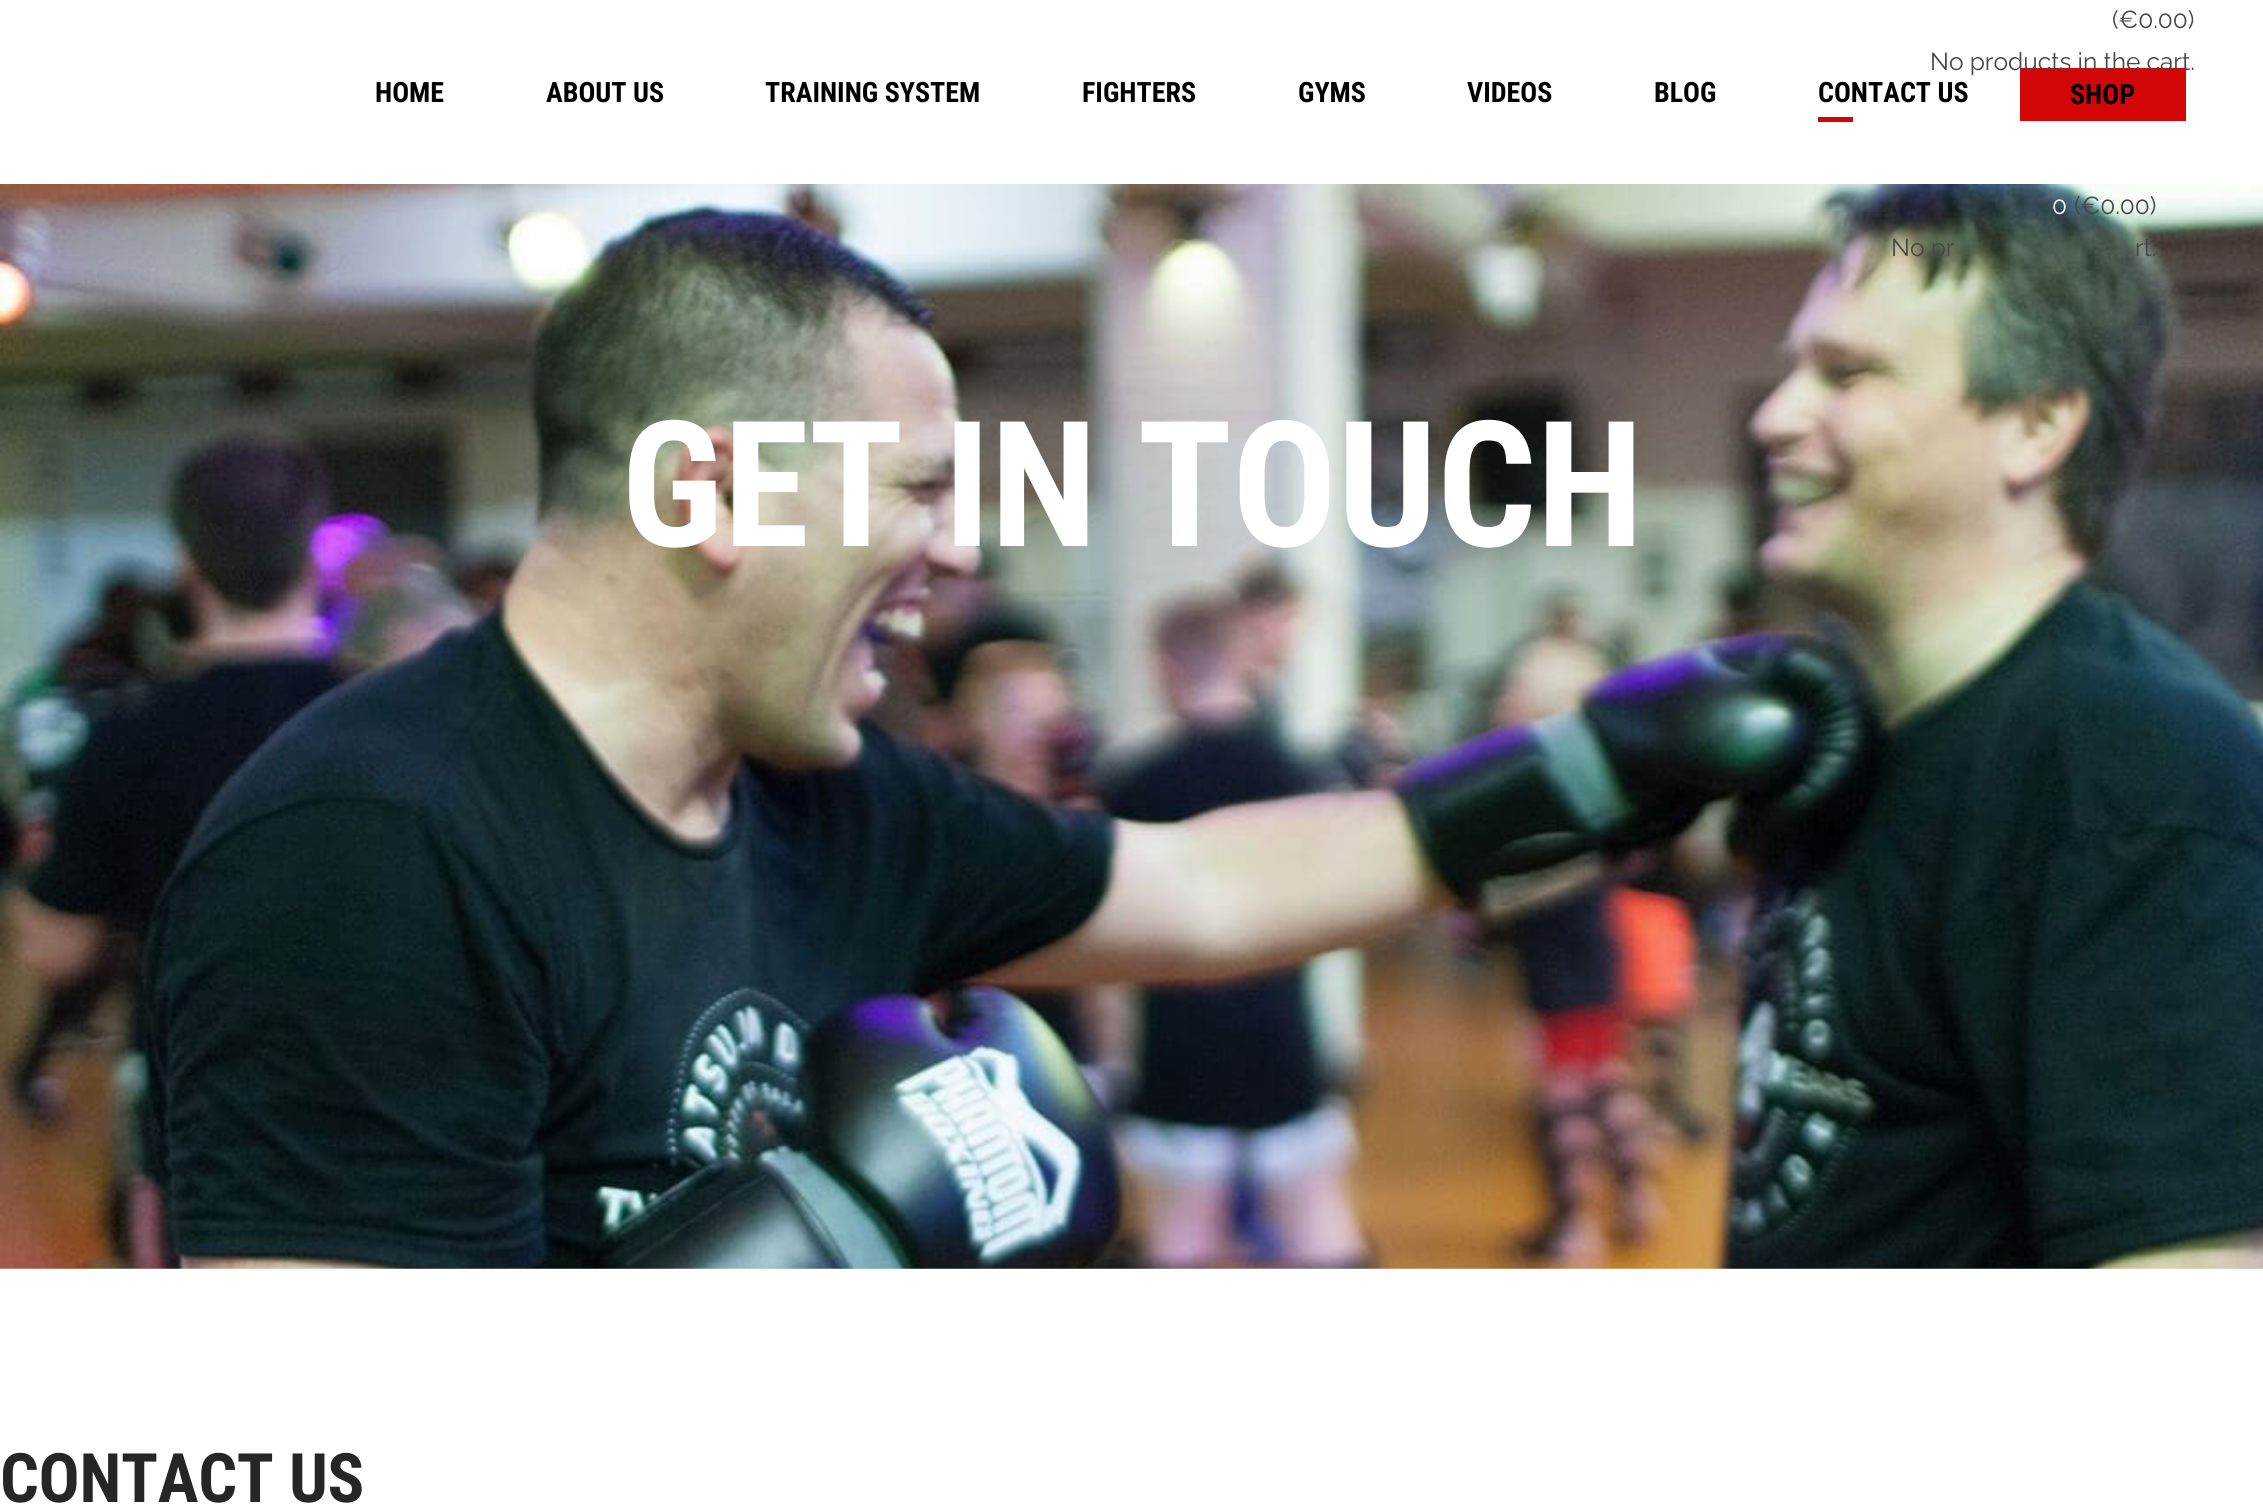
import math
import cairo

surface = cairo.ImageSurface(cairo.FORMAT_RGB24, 2263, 1511)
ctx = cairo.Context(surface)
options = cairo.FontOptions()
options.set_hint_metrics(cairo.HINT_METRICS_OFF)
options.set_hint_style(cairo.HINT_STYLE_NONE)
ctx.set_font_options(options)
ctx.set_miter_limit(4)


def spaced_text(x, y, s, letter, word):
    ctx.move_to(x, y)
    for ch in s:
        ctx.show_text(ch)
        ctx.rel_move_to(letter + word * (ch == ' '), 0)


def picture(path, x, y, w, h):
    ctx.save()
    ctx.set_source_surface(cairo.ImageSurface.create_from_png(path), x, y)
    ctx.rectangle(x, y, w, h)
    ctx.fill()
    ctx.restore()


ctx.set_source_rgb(1, 1, 1)
ctx.paint()
ctx.select_font_face("Raleway")
ctx.set_font_size(24.5)
ctx.set_source_rgb(0.275, 0.275, 0.275)
ctx.move_to(2112, 28)
ctx.show_text("(€0.00)")
ctx.set_source_rgb(0.824, 0.024, 0.024)
ctx.rectangle(2020, 68, 166, 53)
ctx.fill()
ctx.set_source_rgb(0.275, 0.275, 0.275)
ctx.move_to(1930, 70)
ctx.show_text("No products in the cart.")
ctx.select_font_face("Roboto Condensed", cairo.FONT_SLANT_NORMAL, cairo.FONT_WEIGHT_BOLD)
ctx.set_font_size(28)
ctx.set_source_rgb(0, 0, 0)
ctx.move_to(375, 102)
ctx.show_text("HOME")
ctx.move_to(546, 102)
ctx.show_text("ABOUT US")
ctx.move_to(765, 102)
ctx.show_text("TRAINING SYSTEM")
ctx.move_to(1082, 102)
ctx.show_text("FIGHTERS")
ctx.move_to(1298, 102)
ctx.show_text("GYMS")
ctx.move_to(1467, 102)
ctx.show_text("VIDEOS")
ctx.move_to(1654, 102)
ctx.show_text("BLOG")
ctx.move_to(1818, 102)
ctx.show_text("CONTACT US")
ctx.set_source_rgb(0.824, 0.024, 0.024)
ctx.rectangle(1818, 117, 35, 5)
ctx.fill()
ctx.set_source_rgb(0, 0, 0)
ctx.move_to(2070, 104)
ctx.show_text("SHOP")
picture("img1.png", 0, 184, 2263, 1085)
ctx.select_font_face("Raleway")
ctx.set_font_size(24.5)
ctx.set_source_rgb(1, 1, 1)
ctx.move_to(2052, 214)
ctx.show_text("0")
ctx.set_source_rgb(0.275, 0.275, 0.275)
ctx.move_to(2074, 214)
ctx.show_text("(€0.00)")
ctx.move_to(1891, 256)
ctx.show_text("No pr")
ctx.move_to(2135, 256)
ctx.show_text("rt.")
ctx.select_font_face("Roboto Condensed", cairo.FONT_SLANT_NORMAL, cairo.FONT_WEIGHT_BOLD)
ctx.set_font_size(175)
ctx.set_source_rgb(1, 1, 1)
spaced_text(621, 546, "GET IN TOUCH", -0.3, 0)
ctx.set_font_size(68.25)
ctx.set_source_rgb(0.149, 0.149, 0.149)
spaced_text(0, 1502, "CONTACT US", -0.3, 0)
surface.write_to_png("page.png")
